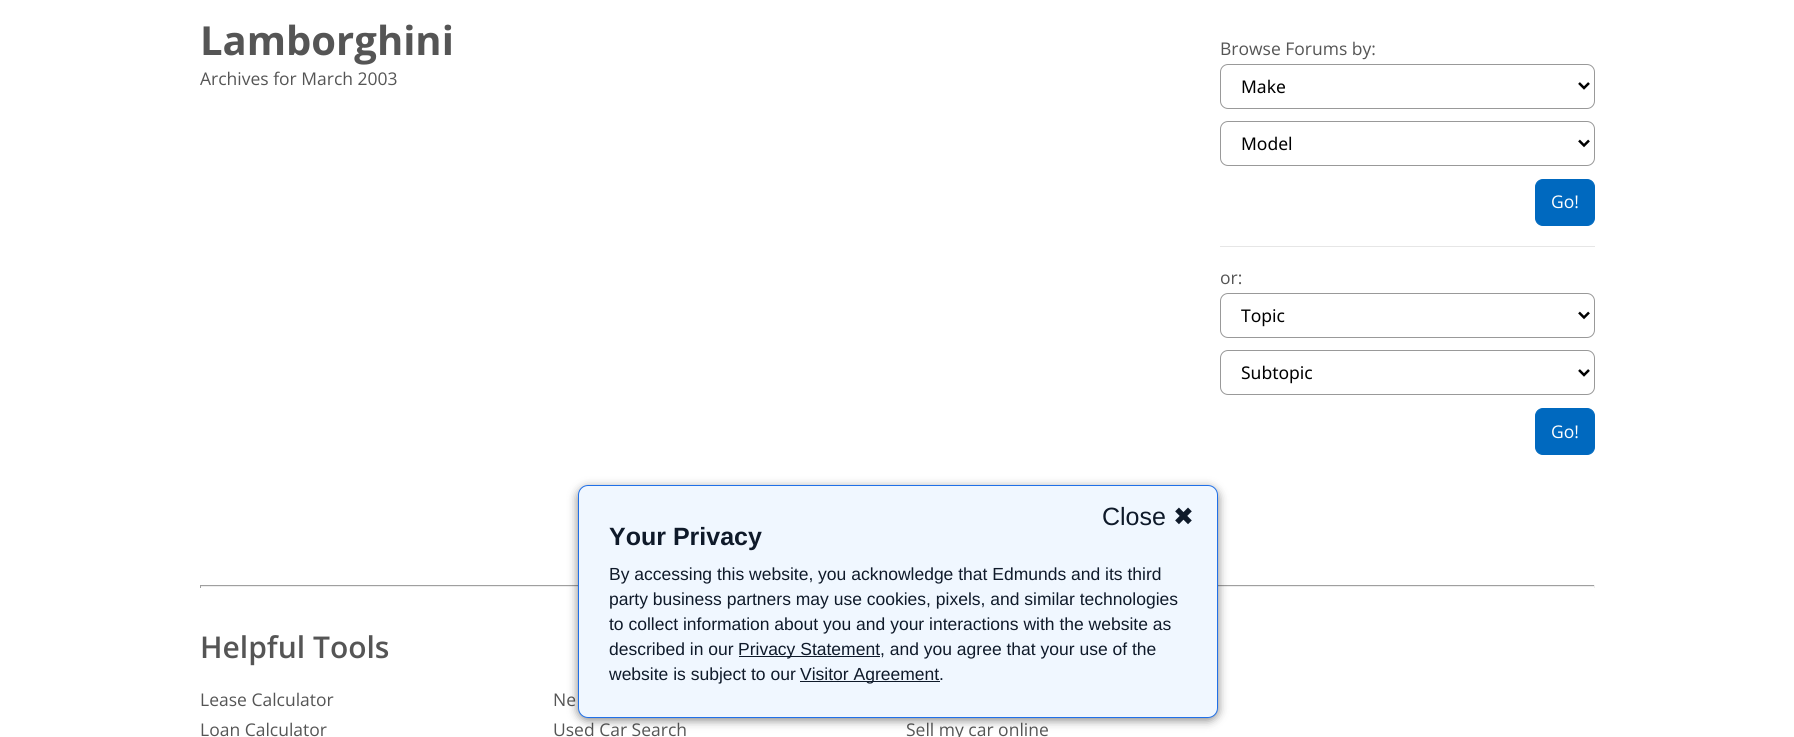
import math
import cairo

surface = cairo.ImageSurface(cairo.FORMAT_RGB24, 1794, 737)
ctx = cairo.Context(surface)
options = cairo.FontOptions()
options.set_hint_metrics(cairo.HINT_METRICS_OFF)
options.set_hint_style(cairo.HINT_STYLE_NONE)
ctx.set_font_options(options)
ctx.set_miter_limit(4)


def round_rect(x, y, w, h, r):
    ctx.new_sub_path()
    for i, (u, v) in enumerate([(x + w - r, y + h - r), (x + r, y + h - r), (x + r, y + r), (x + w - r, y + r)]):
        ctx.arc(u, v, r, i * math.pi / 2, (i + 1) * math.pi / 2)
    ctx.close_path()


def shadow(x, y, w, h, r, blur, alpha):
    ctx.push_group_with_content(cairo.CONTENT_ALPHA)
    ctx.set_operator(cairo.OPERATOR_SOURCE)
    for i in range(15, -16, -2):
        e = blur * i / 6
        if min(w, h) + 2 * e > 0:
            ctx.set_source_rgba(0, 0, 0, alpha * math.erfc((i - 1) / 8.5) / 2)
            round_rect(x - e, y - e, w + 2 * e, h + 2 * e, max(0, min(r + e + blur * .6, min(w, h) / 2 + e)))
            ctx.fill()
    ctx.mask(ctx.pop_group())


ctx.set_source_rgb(1, 1, 1)
ctx.paint()
ctx.select_font_face("Open Sans", cairo.FONT_SLANT_NORMAL, cairo.FONT_WEIGHT_BOLD)
ctx.set_font_size(40)
ctx.set_source_rgb(0.333, 0.333, 0.333)
ctx.move_to(200, 55)
ctx.show_text("Lamborghini")
ctx.select_font_face("Open Sans")
ctx.set_font_size(17.5)
ctx.move_to(200, 85)
ctx.show_text("Archives for March 2003")
ctx.move_to(1220, 55)
ctx.show_text("Browse Forums by:")
round_rect(1220.5, 64.5, 374, 44, 7.5)
ctx.set_source_rgb(0.6, 0.6, 0.6)
ctx.set_line_width(1)
ctx.stroke()
ctx.new_path()
ctx.move_to(1579, 83)
ctx.line_to(1584, 88)
ctx.line_to(1589, 83)
ctx.set_source_rgb(0, 0, 0)
ctx.set_line_width(2.5)
ctx.stroke()
ctx.select_font_face("Noto Sans")
ctx.move_to(1241, 93)
ctx.show_text("Make")
round_rect(1220.5, 121.5, 374, 44, 7.5)
ctx.set_source_rgb(0.6, 0.6, 0.6)
ctx.set_line_width(1)
ctx.stroke()
ctx.new_path()
ctx.move_to(1579, 140.5)
ctx.line_to(1584, 145.5)
ctx.line_to(1589, 140.5)
ctx.set_source_rgb(0, 0, 0)
ctx.set_line_width(2.5)
ctx.stroke()
ctx.move_to(1241, 150)
ctx.show_text("Model")
ctx.set_source_rgb(0, 0.412, 0.749)
round_rect(1535.5, 179.5, 59, 46, 7.5)
ctx.fill_preserve()
ctx.set_line_width(1)
ctx.stroke()
ctx.select_font_face("Open Sans")
ctx.set_source_rgb(1, 1, 1)
ctx.move_to(1551, 208)
ctx.show_text("Go!")
ctx.set_source_rgb(0.902, 0.902, 0.902)
ctx.rectangle(1220, 246, 375, 1)
ctx.fill()
ctx.set_source_rgb(0.333, 0.333, 0.333)
ctx.move_to(1220, 284)
ctx.show_text("or:")
round_rect(1220.5, 293.5, 374, 44, 7.5)
ctx.set_source_rgb(0.6, 0.6, 0.6)
ctx.stroke()
ctx.new_path()
ctx.move_to(1579, 312.5)
ctx.line_to(1584, 317.5)
ctx.line_to(1589, 312.5)
ctx.set_source_rgb(0, 0, 0)
ctx.set_line_width(2.5)
ctx.stroke()
ctx.select_font_face("Noto Sans")
ctx.move_to(1241, 322)
ctx.show_text("Topic")
round_rect(1220.5, 350.5, 374, 44, 7.5)
ctx.set_source_rgb(0.6, 0.6, 0.6)
ctx.set_line_width(1)
ctx.stroke()
ctx.new_path()
ctx.move_to(1579, 370)
ctx.line_to(1584, 375)
ctx.line_to(1589, 370)
ctx.set_source_rgb(0, 0, 0)
ctx.set_line_width(2.5)
ctx.stroke()
ctx.move_to(1241, 379)
ctx.show_text("Subtopic")
ctx.set_source_rgb(0, 0.412, 0.749)
round_rect(1535.5, 408.5, 59, 46, 7.5)
ctx.fill_preserve()
ctx.set_line_width(1)
ctx.stroke()
ctx.select_font_face("Open Sans")
ctx.set_source_rgb(1, 1, 1)
ctx.move_to(1551, 438)
ctx.show_text("Go!")
ctx.set_source_rgb(0.624, 0.624, 0.624)
ctx.rectangle(200, 585, 1395, 1)
ctx.fill()
ctx.set_source_rgb(0.933, 0.933, 0.933)
ctx.rectangle(1594, 585, 1, 3)
ctx.fill()
ctx.rectangle(200, 586, 1395, 1)
ctx.fill()
ctx.set_source_rgb(0.624, 0.624, 0.624)
ctx.rectangle(200, 585, 1, 3)
ctx.fill()
ctx.select_font_face("Open Sans SemiBold")
ctx.set_font_size(30)
ctx.set_source_rgb(0.333, 0.333, 0.333)
ctx.move_to(200, 658)
ctx.show_text("Helpful Tools")
ctx.select_font_face("Open Sans")
ctx.set_font_size(17.5)
ctx.move_to(200, 706)
ctx.show_text("Lease Calculator")
ctx.move_to(553, 706)
ctx.show_text("Ne")
ctx.move_to(200, 736)
ctx.show_text("Loan Calculator")
ctx.move_to(553, 736)
ctx.show_text("Used Car Search")
ctx.move_to(906, 736)
ctx.show_text("Sell my car online")
ctx.set_source_rgb(0, 0, 0)
shadow(578, 488, 640, 232, 10, 5, 0.5)
ctx.set_source_rgb(0.941, 0.965, 1)
round_rect(578.5, 485.5, 639, 232, 9.5)
ctx.fill_preserve()
ctx.set_source_rgb(0.125, 0.439, 0.91)
ctx.stroke()
ctx.select_font_face("Liberation Sans")
ctx.set_font_size(25)
ctx.set_source_rgb(0.059, 0.102, 0.165)
ctx.move_to(1102, 525)
ctx.show_text("Close")
ctx.select_font_face("DejaVu Sans")
ctx.move_to(1173, 525)
ctx.show_text("✖")
ctx.select_font_face("Liberation Sans", cairo.FONT_SLANT_NORMAL, cairo.FONT_WEIGHT_BOLD)
ctx.move_to(609, 545)
ctx.show_text("Your Privacy")
ctx.select_font_face("Liberation Sans")
ctx.set_font_size(17.5)
ctx.move_to(609, 580)
ctx.show_text("By accessing this website, you acknowledge that Edmunds and its third")
ctx.move_to(609, 605)
ctx.show_text("party business partners may use cookies, pixels, and similar technologies")
ctx.move_to(609, 630)
ctx.show_text("to collect information about you and your interactions with the website as")
ctx.move_to(609, 655)
ctx.show_text("described in our")
ctx.rectangle(739, 656, 141, 1)
ctx.fill()
ctx.move_to(738, 655)
ctx.show_text("Privacy Statement, and you agree that your use of the")
ctx.move_to(609, 680)
ctx.show_text("website is subject to our")
ctx.rectangle(800, 681, 140, 1)
ctx.fill()
ctx.move_to(800, 680)
ctx.show_text("Visitor Agreement.")
surface.write_to_png("page.png")
